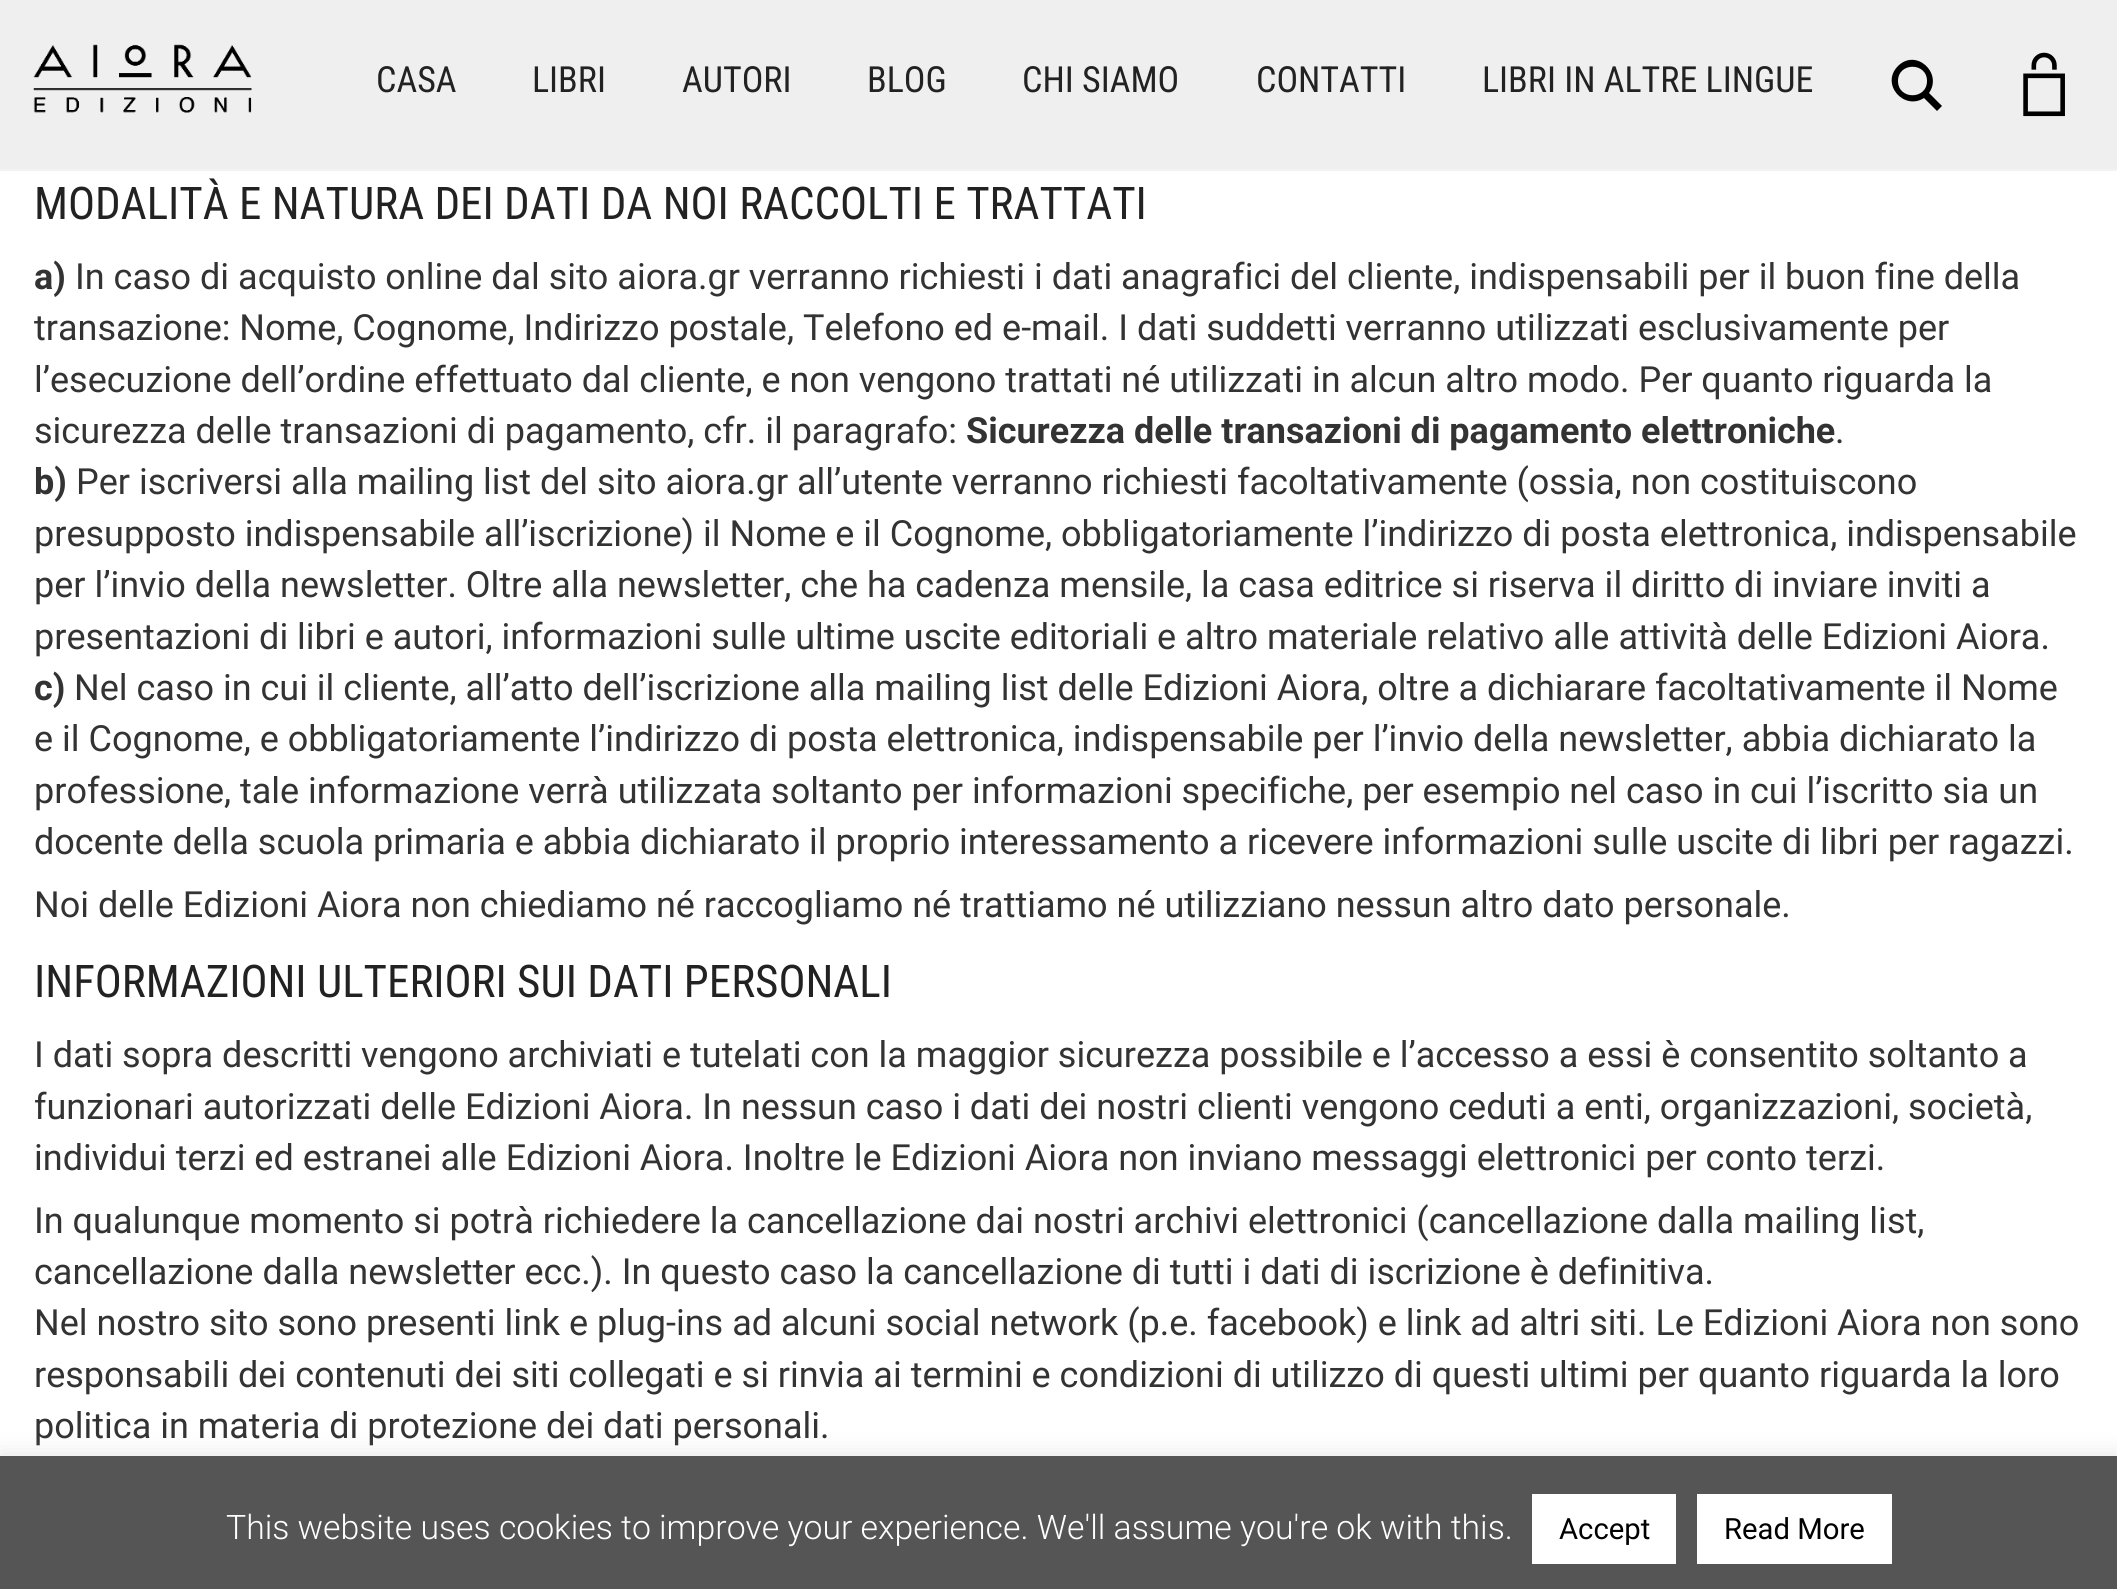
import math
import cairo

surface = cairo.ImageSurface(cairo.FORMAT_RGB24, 2117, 1589)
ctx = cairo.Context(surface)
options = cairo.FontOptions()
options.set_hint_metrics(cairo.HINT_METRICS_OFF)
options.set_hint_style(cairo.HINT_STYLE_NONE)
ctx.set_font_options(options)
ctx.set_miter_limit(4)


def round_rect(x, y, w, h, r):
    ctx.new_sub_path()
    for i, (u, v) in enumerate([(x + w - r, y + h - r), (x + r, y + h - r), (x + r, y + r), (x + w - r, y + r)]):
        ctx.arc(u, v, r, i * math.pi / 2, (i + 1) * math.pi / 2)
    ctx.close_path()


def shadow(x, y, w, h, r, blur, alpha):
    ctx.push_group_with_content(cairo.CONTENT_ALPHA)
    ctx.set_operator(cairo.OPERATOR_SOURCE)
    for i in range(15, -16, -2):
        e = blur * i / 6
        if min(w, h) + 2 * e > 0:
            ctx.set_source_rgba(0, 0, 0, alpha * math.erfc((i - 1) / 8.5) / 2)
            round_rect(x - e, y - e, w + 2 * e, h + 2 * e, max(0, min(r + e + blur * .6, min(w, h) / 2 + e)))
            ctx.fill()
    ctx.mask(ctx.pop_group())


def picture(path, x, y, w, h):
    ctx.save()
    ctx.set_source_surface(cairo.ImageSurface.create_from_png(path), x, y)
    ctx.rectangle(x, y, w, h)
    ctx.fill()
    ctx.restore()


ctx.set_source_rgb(1, 1, 1)
ctx.paint()
ctx.set_source_rgb(0.949, 0.949, 0.949)
ctx.rectangle(0, 169, 2117, 2)
ctx.fill()
ctx.set_source_rgb(0.937, 0.937, 0.937)
ctx.rectangle(0, 0, 2117, 169)
ctx.fill()
picture("img1.png", 33, 44, 219, 69)
ctx.select_font_face("Roboto Condensed")
ctx.set_font_size(36)
ctx.set_source_rgb(0.133, 0.133, 0.133)
ctx.move_to(376, 92)
ctx.show_text("CASA")
ctx.move_to(532, 92)
ctx.show_text("LIBRI")
ctx.move_to(682, 92)
ctx.show_text("AUTORI")
ctx.move_to(867, 92)
ctx.show_text("BLOG")
ctx.move_to(1022, 92)
ctx.show_text("CHI SIAMO")
ctx.move_to(1256, 92)
ctx.show_text("CONTATTI")
ctx.move_to(1482, 92)
ctx.show_text("LIBRI IN ALTRE LINGUE")
ctx.set_source_rgb(0, 0, 0)
ctx.new_path()
ctx.move_to(1942, 106)
ctx.line_to(1929, 93)
ctx.curve_to(1943, 73, 1916, 48, 1898, 66)
ctx.curve_to(1880, 84, 1904, 111, 1924, 98)
ctx.line_to(1937, 111)
ctx.close_path()
ctx.move_to(1898, 81)
ctx.curve_to(1898, 62, 1927, 62, 1927, 81)
ctx.curve_to(1927, 100, 1898, 100, 1898, 81)
ctx.close_path()
ctx.fill()
picture("img2.png", 2023, 52, 42, 65)
ctx.set_font_size(45)
ctx.set_source_rgb(0.133, 0.133, 0.133)
ctx.move_to(34, 219)
ctx.show_text("MODALITÀ E NATURA DEI DATI DA NOI RACCOLTI E TRATTATI")
ctx.select_font_face("Roboto", cairo.FONT_SLANT_NORMAL, cairo.FONT_WEIGHT_BOLD)
ctx.set_font_size(36)
ctx.set_source_rgb(0.2, 0.2, 0.2)
ctx.move_to(34, 289)
ctx.show_text("a)")
ctx.select_font_face("Roboto")
ctx.move_to(75, 289)
ctx.show_text("In caso di acquisto online dal sito aiora.gr verranno richiesti i dati anagrafici del cliente, indispensabili per il buon fine della")
ctx.move_to(34, 340)
ctx.show_text("transazione: Nome, Cognome, Indirizzo postale, Telefono ed e-mail. I dati suddetti verranno utilizzati esclusivamente per")
ctx.move_to(34, 392)
ctx.show_text("l’esecuzione dell’ordine effettuato dal cliente, e non vengono trattati né utilizzati in alcun altro modo. Per quanto riguarda la")
ctx.move_to(34, 443)
ctx.show_text("sicurezza delle transazioni di pagamento, cfr. il paragrafo:")
ctx.select_font_face("Roboto", cairo.FONT_SLANT_NORMAL, cairo.FONT_WEIGHT_BOLD)
ctx.move_to(966, 443)
ctx.show_text("Sicurezza delle transazioni di pagamento elettroniche")
ctx.select_font_face("Roboto")
ctx.move_to(1835, 443)
ctx.show_text(".")
ctx.select_font_face("Roboto", cairo.FONT_SLANT_NORMAL, cairo.FONT_WEIGHT_BOLD)
ctx.move_to(34, 494)
ctx.show_text("b)")
ctx.select_font_face("Roboto")
ctx.move_to(76, 494)
ctx.show_text("Per iscriversi alla mailing list del sito aiora.gr all’utente verranno richiesti facoltativamente (ossia, non costituiscono")
ctx.move_to(34, 546)
ctx.show_text("presupposto indispensabile all’iscrizione) il Nome e il Cognome, obbligatoriamente l’indirizzo di posta elettronica, indispensabile")
ctx.move_to(34, 597)
ctx.show_text("per l’invio della newsletter. Oltre alla newsletter, che ha cadenza mensile, la casa editrice si riserva il diritto di inviare inviti a")
ctx.move_to(34, 649)
ctx.show_text("presentazioni di libri e autori, informazioni sulle ultime uscite editoriali e altro materiale relativo alle attività delle Edizioni Aiora.")
ctx.select_font_face("Roboto", cairo.FONT_SLANT_NORMAL, cairo.FONT_WEIGHT_BOLD)
ctx.move_to(34, 700)
ctx.show_text("c)")
ctx.select_font_face("Roboto")
ctx.move_to(74, 700)
ctx.show_text("Nel caso in cui il cliente, all’atto dell’iscrizione alla mailing list delle Edizioni Aiora, oltre a dichiarare facoltativamente il Nome")
ctx.move_to(34, 751)
ctx.show_text("e il Cognome, e obbligatoriamente l’indirizzo di posta elettronica, indispensabile per l’invio della newsletter, abbia dichiarato la")
ctx.move_to(34, 803)
ctx.show_text("professione, tale informazione verrà utilizzata soltanto per informazioni specifiche, per esempio nel caso in cui l’iscritto sia un")
ctx.move_to(34, 854)
ctx.show_text("docente della scuola primaria e abbia dichiarato il proprio interessamento a ricevere informazioni sulle uscite di libri per ragazzi.")
ctx.move_to(34, 917)
ctx.show_text("Noi delle Edizioni Aiora non chiediamo né raccogliamo né trattiamo né utilizziano nessun altro dato personale.")
ctx.select_font_face("Roboto Condensed")
ctx.set_font_size(45)
ctx.set_source_rgb(0.133, 0.133, 0.133)
ctx.move_to(34, 997)
ctx.show_text("INFORMAZIONI ULTERIORI SUI DATI PERSONALI")
ctx.select_font_face("Roboto")
ctx.set_font_size(36)
ctx.set_source_rgb(0.2, 0.2, 0.2)
ctx.move_to(34, 1067)
ctx.show_text("I dati sopra descritti vengono archiviati e tutelati con la maggior sicurezza possibile e l’accesso a essi è consentito soltanto a")
ctx.move_to(34, 1119)
ctx.show_text("funzionari autorizzati delle Edizioni Aiora. In nessun caso i dati dei nostri clienti vengono ceduti a enti, organizzazioni, società,")
ctx.move_to(34, 1170)
ctx.show_text("individui terzi ed estranei alle Edizioni Aiora. Inoltre le Edizioni Aiora non inviano messaggi elettronici per conto terzi.")
ctx.move_to(34, 1233)
ctx.show_text("In qualunque momento si potrà richiedere la cancellazione dai nostri archivi elettronici (cancellazione dalla mailing list,")
ctx.move_to(34, 1284)
ctx.show_text("cancellazione dalla newsletter ecc.). In questo caso la cancellazione di tutti i dati di iscrizione è definitiva.")
ctx.move_to(34, 1335)
ctx.show_text("Nel nostro sito sono presenti link e plug-ins ad alcuni social network (p.e. facebook) e link ad altri siti. Le Edizioni Aiora non sono")
ctx.move_to(34, 1387)
ctx.show_text("responsabili dei contenuti dei siti collegati e si rinvia ai termini e condizioni di utilizzo di questi ultimi per quanto riguarda la loro")
ctx.move_to(34, 1438)
ctx.show_text("politica in materia di protezione dei dati personali.")
ctx.set_source_rgb(0.675, 0.671, 0.671)
shadow(0, 1454, 2117, 135, 0, 11, 0.3)
ctx.set_source_rgb(0.333, 0.333, 0.333)
ctx.rectangle(0, 1456, 2117, 133)
ctx.fill()
ctx.select_font_face("Roboto Light")
ctx.set_font_size(33.75)
ctx.set_source_rgb(1, 1, 1)
ctx.move_to(226, 1539)
ctx.show_text("This website uses cookies to improve your experience. We'll assume you're ok with this.")
ctx.rectangle(1532, 1494, 144, 70)
ctx.fill()
ctx.select_font_face("Roboto")
ctx.set_font_size(29.25)
ctx.set_source_rgb(0, 0, 0)
ctx.move_to(1559, 1539)
ctx.show_text("Accept")
ctx.set_source_rgb(1, 1, 1)
ctx.rectangle(1697, 1494, 195, 70)
ctx.fill()
ctx.set_source_rgb(0, 0, 0)
ctx.move_to(1724, 1539)
ctx.show_text("Read More")
surface.write_to_png("page.png")
